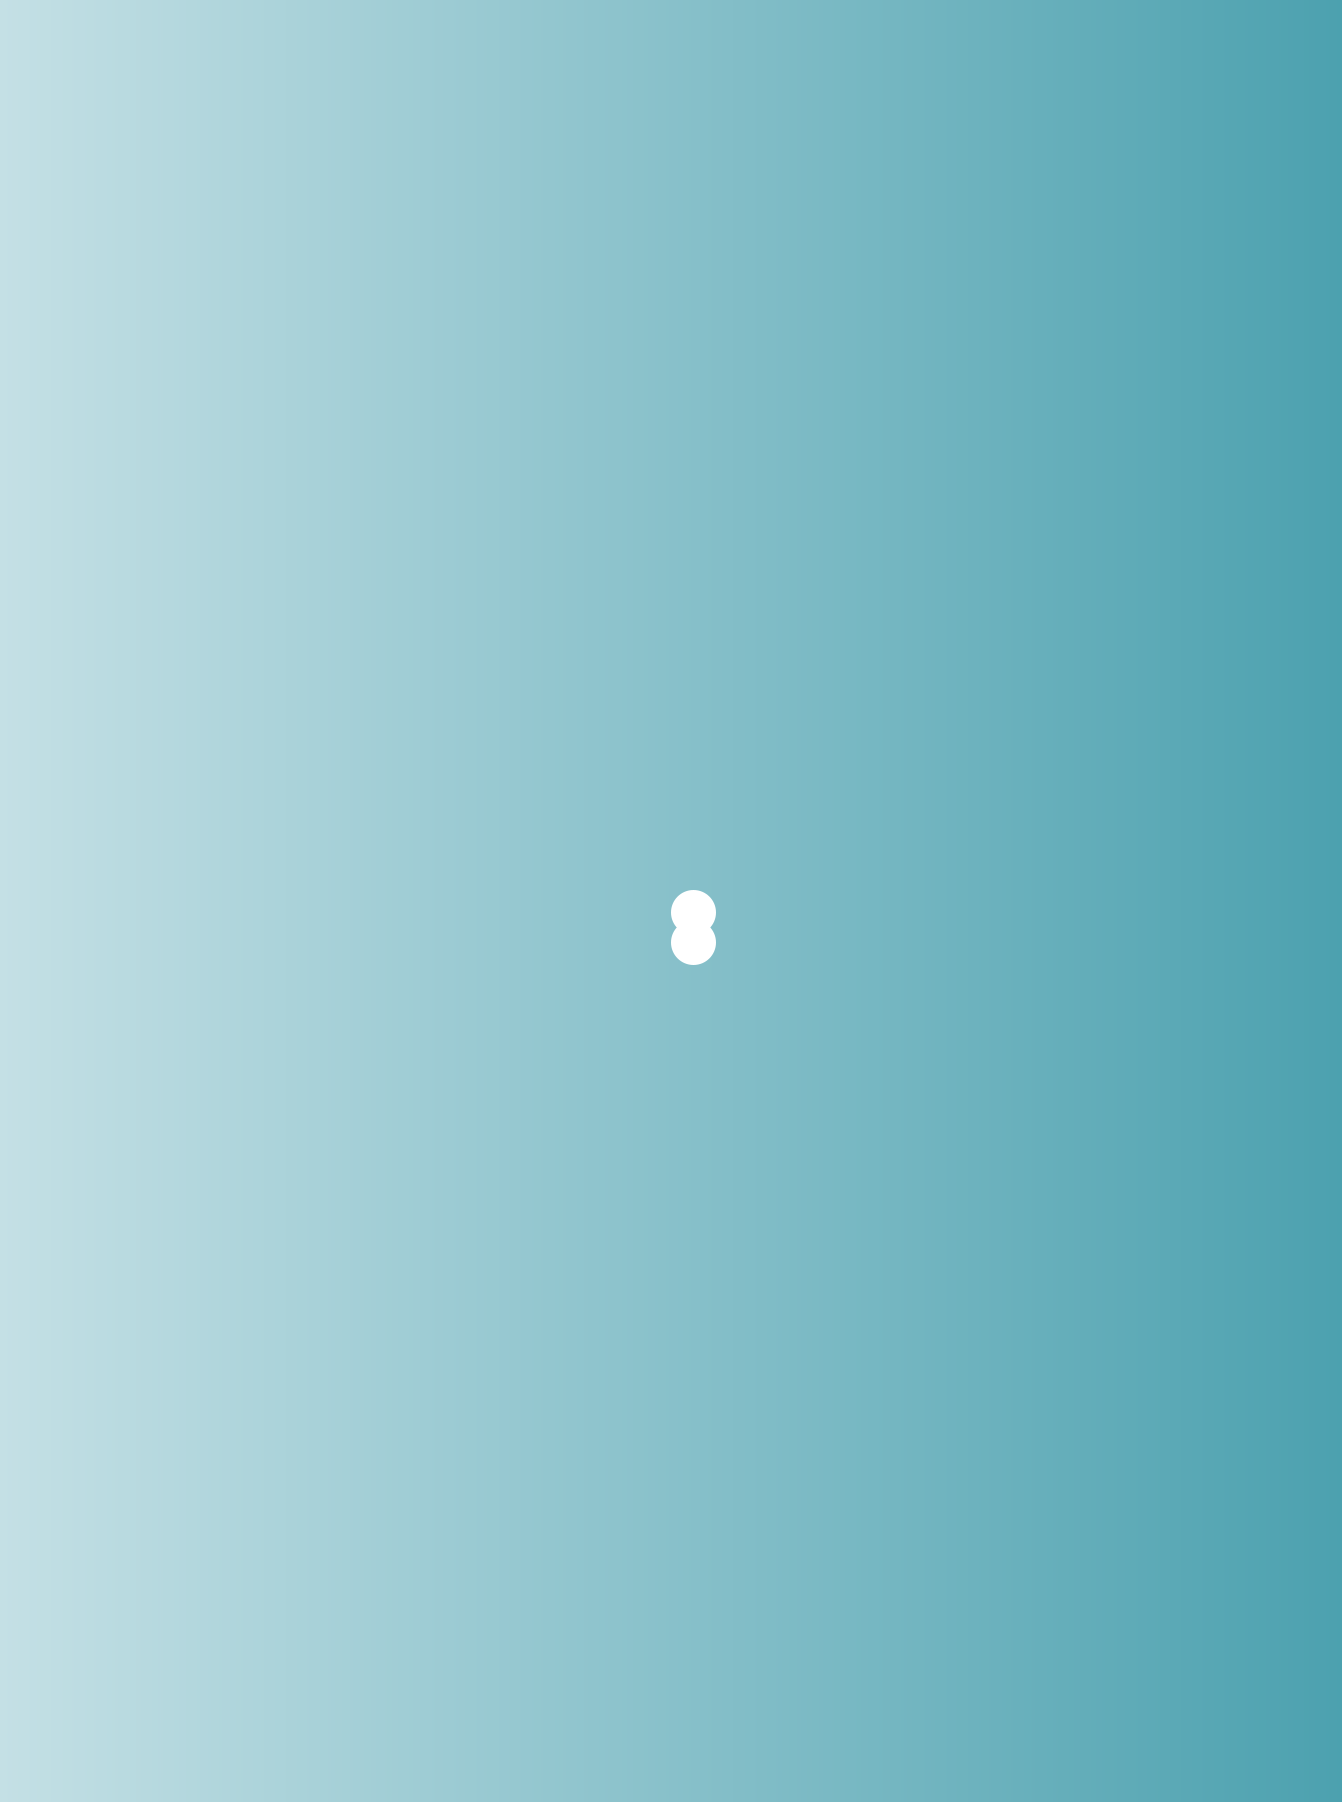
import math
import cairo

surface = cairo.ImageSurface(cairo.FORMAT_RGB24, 1342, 1802)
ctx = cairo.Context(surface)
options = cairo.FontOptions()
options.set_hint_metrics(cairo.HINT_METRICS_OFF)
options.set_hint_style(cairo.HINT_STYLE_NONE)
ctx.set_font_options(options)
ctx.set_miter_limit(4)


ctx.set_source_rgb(1, 1, 1)
ctx.paint()
gradient = cairo.LinearGradient(0, 901, 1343, 901)
gradient.add_color_stop_rgba(0, 0.769, 0.878, 0.898, 1)
gradient.add_color_stop_rgba(1, 0.298, 0.631, 0.686, 1)
ctx.set_source(gradient)
ctx.rectangle(0, 0, 1342, 1802)
ctx.fill()
ctx.set_source_rgb(1, 1, 1)
ctx.arc(693.5, 912.5, 22.5, 0, 2 * math.pi)
ctx.fill()
ctx.arc(693.5, 942.5, 22.5, 0, 2 * math.pi)
ctx.fill()
surface.write_to_png("page.png")
